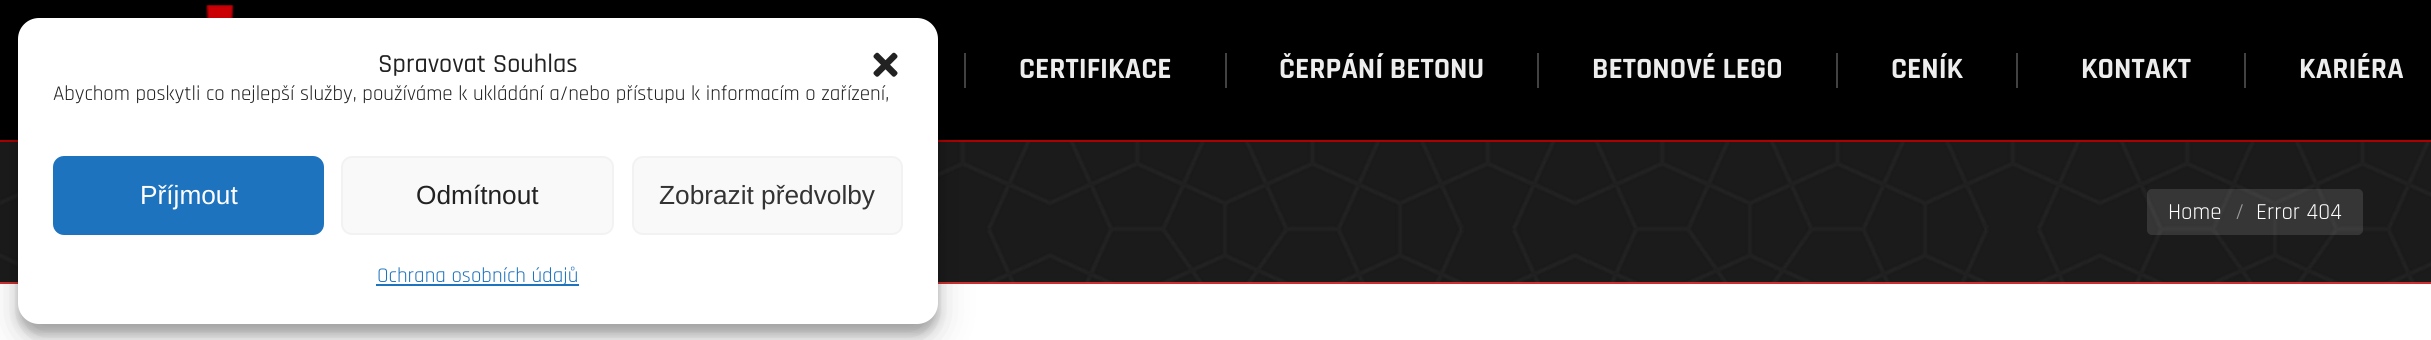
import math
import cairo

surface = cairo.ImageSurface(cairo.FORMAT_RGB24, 2431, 340)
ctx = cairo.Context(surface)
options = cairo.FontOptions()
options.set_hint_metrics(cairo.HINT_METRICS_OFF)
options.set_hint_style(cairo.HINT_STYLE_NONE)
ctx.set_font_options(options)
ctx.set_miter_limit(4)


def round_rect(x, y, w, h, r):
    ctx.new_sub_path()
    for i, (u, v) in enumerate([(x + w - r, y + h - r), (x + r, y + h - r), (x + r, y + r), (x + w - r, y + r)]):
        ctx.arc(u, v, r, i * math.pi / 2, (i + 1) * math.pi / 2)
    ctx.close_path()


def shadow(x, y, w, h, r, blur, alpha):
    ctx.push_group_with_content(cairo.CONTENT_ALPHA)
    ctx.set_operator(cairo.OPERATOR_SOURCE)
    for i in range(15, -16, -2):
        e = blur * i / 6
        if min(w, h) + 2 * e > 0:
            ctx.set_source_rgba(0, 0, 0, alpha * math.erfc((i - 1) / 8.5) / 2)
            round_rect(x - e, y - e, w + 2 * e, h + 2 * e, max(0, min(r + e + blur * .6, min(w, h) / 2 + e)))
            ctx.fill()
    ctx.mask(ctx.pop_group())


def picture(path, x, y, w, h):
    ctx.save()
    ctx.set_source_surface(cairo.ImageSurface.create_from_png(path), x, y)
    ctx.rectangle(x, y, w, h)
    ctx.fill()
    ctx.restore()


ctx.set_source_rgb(1, 1, 1)
ctx.paint()
ctx.set_source_rgb(0, 0, 0)
ctx.rectangle(0, 0, 2431, 140)
ctx.fill()
ctx.set_source_rgb(0.678, 0, 0)
ctx.rectangle(0, 140, 2431, 2)
ctx.fill()
picture("img2.png", 206, 5, 29, 13)
ctx.set_source_rgb(0.102, 0.102, 0.102)
ctx.rectangle(0, 142, 2431, 142)
ctx.fill()
picture("img3.png", 0, 142, 2431, 142)
ctx.set_source_rgba(0.867, 0.2, 0.2, 0.91)
ctx.rectangle(0, 282, 2431, 2)
ctx.fill()
ctx.set_source_rgb(0, 0, 0)
shadow(18, 28, 920, 306, 21, 5, 0.23)
ctx.set_source_rgb(0.259, 0.259, 0.259)
ctx.rectangle(964, 53, 2, 35)
ctx.fill()
ctx.set_source_rgb(0, 0, 0)
shadow(18, 35, 920, 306, 21, 17.5, 0.19)
ctx.set_source_rgb(1, 1, 1)
round_rect(18, 18, 920, 306, 21)
ctx.fill()
ctx.select_font_face("Rajdhani Medium")
ctx.set_font_size(26.25)
ctx.set_source_rgb(0.133, 0.133, 0.133)
ctx.move_to(378, 72)
ctx.show_text("Spravovat Souhlas")
picture("img1.png", 873, 52, 25, 25)
ctx.select_font_face("Rajdhani")
ctx.set_font_size(21)
ctx.move_to(53, 100)
ctx.show_text("Abychom poskytli co nejlepší služby, používáme k ukládání a/nebo přístupu k informacím o zařízení,")
ctx.set_source_rgb(0.118, 0.451, 0.745)
round_rect(54, 157, 269, 77, 10)
ctx.fill_preserve()
ctx.stroke()
ctx.select_font_face("Liberation Sans")
ctx.set_font_size(26.25)
ctx.set_source_rgb(1, 1, 1)
ctx.move_to(140, 204)
ctx.show_text("Příjmout")
ctx.set_source_rgb(0.976, 0.976, 0.976)
round_rect(342, 157, 271, 77, 10)
ctx.fill_preserve()
ctx.set_source_rgb(0.949, 0.949, 0.949)
ctx.stroke()
ctx.set_source_rgb(0.133, 0.133, 0.133)
ctx.move_to(416, 204)
ctx.show_text("Odmítnout")
ctx.set_source_rgb(0.976, 0.976, 0.976)
round_rect(633, 157, 269, 77, 10)
ctx.fill_preserve()
ctx.set_source_rgb(0.949, 0.949, 0.949)
ctx.stroke()
ctx.set_source_rgb(0.2, 0.2, 0.2)
ctx.move_to(659, 204)
ctx.show_text("Zobrazit předvolby")
ctx.set_source_rgb(0.118, 0.451, 0.745)
ctx.rectangle(376, 284, 203, 2)
ctx.fill()
ctx.select_font_face("Rajdhani")
ctx.set_font_size(21)
ctx.move_to(377, 282)
ctx.show_text("Ochrana osobních údajů")
ctx.select_font_face("Rajdhani", cairo.FONT_SLANT_NORMAL, cairo.FONT_WEIGHT_BOLD)
ctx.set_font_size(29.75)
ctx.set_source_rgb(0.929, 0.929, 0.929)
ctx.move_to(1019, 78)
ctx.show_text("CERTIFIKACE")
ctx.set_source_rgb(0.259, 0.259, 0.259)
ctx.rectangle(1225, 53, 2, 35)
ctx.fill()
ctx.set_source_rgb(0.929, 0.929, 0.929)
ctx.move_to(1279, 78)
ctx.show_text("ČERPÁNÍ BETONU")
ctx.set_source_rgb(0.259, 0.259, 0.259)
ctx.rectangle(1537, 53, 2, 35)
ctx.fill()
ctx.set_source_rgb(0.929, 0.929, 0.929)
ctx.move_to(1592, 78)
ctx.show_text("BETONOVÉ LEGO")
ctx.set_source_rgb(0.259, 0.259, 0.259)
ctx.rectangle(1836, 53, 2, 35)
ctx.fill()
ctx.set_source_rgb(0.929, 0.929, 0.929)
ctx.move_to(1891, 78)
ctx.show_text("CENÍK")
ctx.set_source_rgb(0.259, 0.259, 0.259)
ctx.rectangle(2016, 53, 2, 35)
ctx.fill()
ctx.set_source_rgb(0.929, 0.929, 0.929)
ctx.move_to(2081, 78)
ctx.show_text("KONTAKT")
ctx.set_source_rgb(0.259, 0.259, 0.259)
ctx.rectangle(2244, 53, 2, 35)
ctx.fill()
ctx.set_source_rgb(0.929, 0.929, 0.929)
ctx.move_to(2299, 78)
ctx.show_text("KARIÉRA")
ctx.set_source_rgba(1, 1, 1, 0.12)
round_rect(2147, 189, 216, 46, 5)
ctx.fill()
ctx.select_font_face("Rajdhani")
ctx.set_font_size(23)
ctx.set_source_rgb(1, 1, 1)
ctx.move_to(2168, 219)
ctx.show_text("Home")
ctx.set_source_rgb(0.608, 0.608, 0.608)
ctx.move_to(2235, 219)
ctx.show_text("/")
ctx.set_source_rgb(1, 1, 1)
ctx.move_to(2256, 219)
ctx.show_text("Error 404")
surface.write_to_png("page.png")
